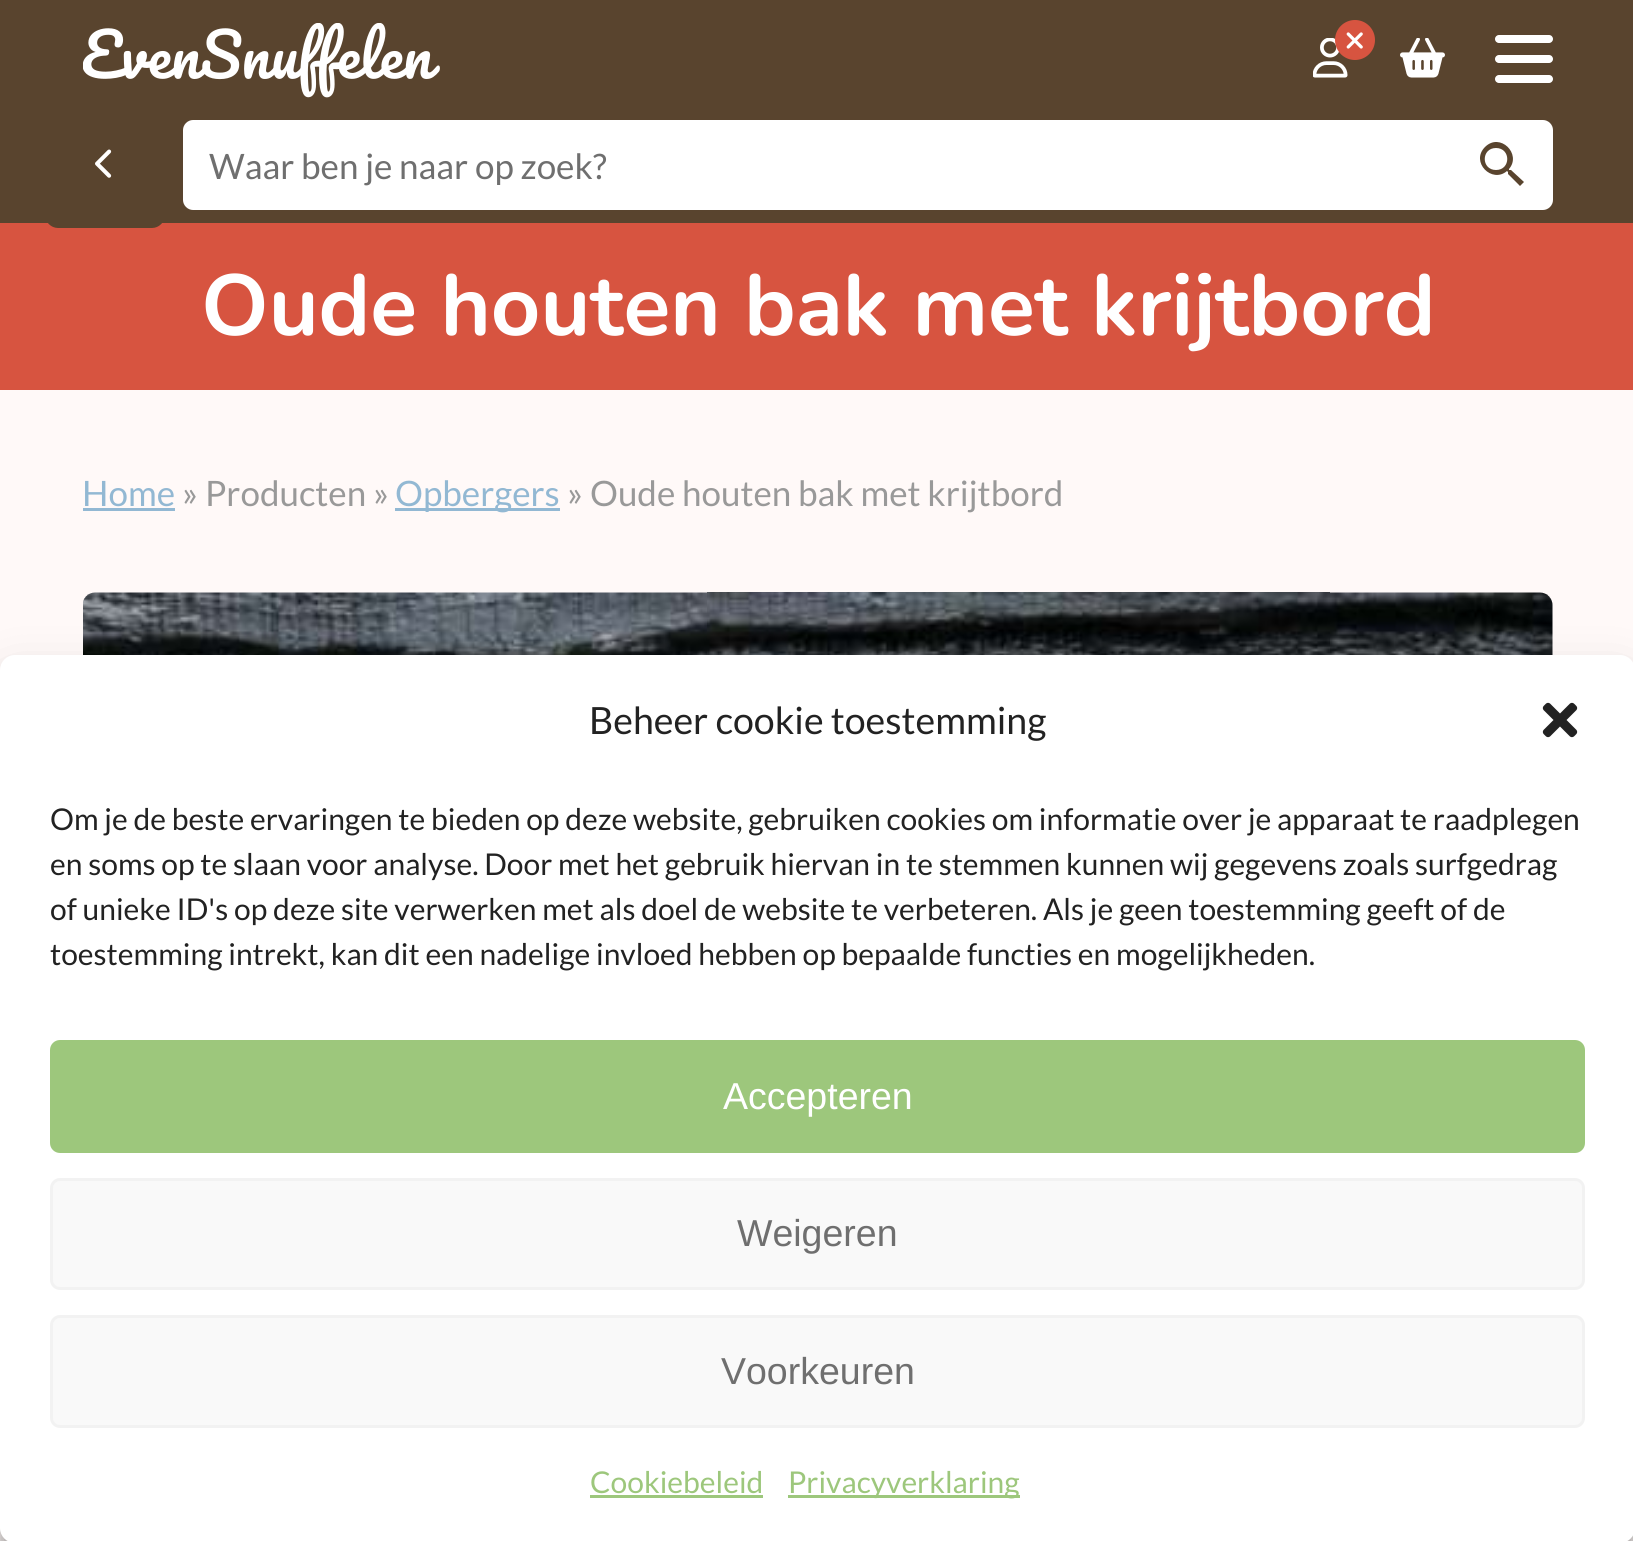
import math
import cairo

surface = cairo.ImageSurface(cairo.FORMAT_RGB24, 1633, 1541)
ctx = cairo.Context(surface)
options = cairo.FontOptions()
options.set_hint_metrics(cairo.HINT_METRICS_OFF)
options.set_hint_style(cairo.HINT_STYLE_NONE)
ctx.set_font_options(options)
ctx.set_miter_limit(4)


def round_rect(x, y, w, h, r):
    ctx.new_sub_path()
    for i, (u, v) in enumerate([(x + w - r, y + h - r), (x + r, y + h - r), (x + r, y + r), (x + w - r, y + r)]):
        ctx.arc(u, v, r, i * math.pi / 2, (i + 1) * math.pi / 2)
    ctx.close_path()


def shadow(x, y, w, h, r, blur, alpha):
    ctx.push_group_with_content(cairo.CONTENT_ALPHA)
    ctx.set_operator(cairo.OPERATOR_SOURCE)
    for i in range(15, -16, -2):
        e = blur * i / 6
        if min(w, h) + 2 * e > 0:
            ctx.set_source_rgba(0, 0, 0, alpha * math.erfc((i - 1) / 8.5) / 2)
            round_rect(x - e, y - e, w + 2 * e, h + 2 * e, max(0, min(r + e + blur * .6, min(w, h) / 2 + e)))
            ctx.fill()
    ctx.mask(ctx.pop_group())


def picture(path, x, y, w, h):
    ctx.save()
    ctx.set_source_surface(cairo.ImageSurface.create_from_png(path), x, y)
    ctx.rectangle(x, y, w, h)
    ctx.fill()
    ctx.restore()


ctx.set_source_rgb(1, 0.976, 0.969)
ctx.paint()
ctx.set_source_rgb(0.349, 0.267, 0.18)
ctx.rectangle(0, 0, 1633, 223)
ctx.fill()
picture("img1.png", 83, 23, 357, 75)
picture("img2.png", 1313, 38, 35, 40)
ctx.set_source_rgb(0.843, 0.329, 0.251)
ctx.arc(1355, 40, 20, 0, 2 * math.pi)
ctx.fill()
picture("img3.png", 1346, 32, 17, 17)
picture("img4.png", 1400, 38, 45, 40)
ctx.set_source_rgb(1, 1, 1)
round_rect(1495, 55, 58, 8, 4)
ctx.fill()
round_rect(1495, 35, 58, 8, 4)
ctx.fill()
round_rect(1495, 75, 58, 8, 4)
ctx.fill()
ctx.set_source_rgb(0.843, 0.329, 0.251)
ctx.rectangle(0, 223, 1633, 167)
ctx.fill()
ctx.set_source_rgb(0.349, 0.267, 0.18)
ctx.new_path()
ctx.move_to(45, 108)
ctx.line_to(165, 108)
ctx.line_to(165, 215)
ctx.curve_to(165, 222, 159, 228, 152, 228)
ctx.line_to(58, 228)
ctx.curve_to(51, 228, 45, 222, 45, 215)
ctx.close_path()
ctx.fill()
picture("img5.png", 95, 149, 17, 29)
ctx.set_source_rgb(1, 1, 1)
ctx.new_path()
ctx.move_to(1449.5, 121.5)
ctx.line_to(1543, 121.5)
ctx.curve_to(1547.5, 121.5, 1551.5, 125.5, 1551.5, 130)
ctx.line_to(1551.5, 200)
ctx.curve_to(1551.5, 204.5, 1547.5, 208.5, 1543, 208.5)
ctx.line_to(1449.5, 208.5)
ctx.close_path()
ctx.fill_preserve()
ctx.set_line_width(3)
ctx.stroke()
ctx.new_path()
ctx.move_to(193, 121.5)
ctx.line_to(1448.5, 121.5)
ctx.line_to(1448.5, 208.5)
ctx.line_to(193, 208.5)
ctx.curve_to(188.5, 208.5, 184.5, 204.5, 184.5, 200)
ctx.line_to(184.5, 130)
ctx.curve_to(184.5, 125.5, 188.5, 121.5, 193, 121.5)
ctx.close_path()
ctx.fill_preserve()
ctx.stroke()
ctx.select_font_face("Lato")
ctx.set_font_size(35)
ctx.set_source_rgb(0.435, 0.435, 0.435)
ctx.move_to(209, 179)
ctx.show_text("Waar ben je naar op zoek?")
ctx.set_source_rgb(0.349, 0.267, 0.18)
ctx.new_path()
ctx.move_to(1511, 170)
ctx.line_to(1509, 170)
ctx.line_to(1509, 169)
ctx.curve_to(1522, 154, 1500, 132, 1485, 147)
ctx.curve_to(1470, 162, 1492, 184, 1507, 171)
ctx.line_to(1508, 172)
ctx.line_to(1508, 174)
ctx.line_to(1520, 186)
ctx.line_to(1524, 182)
ctx.close_path()
ctx.move_to(1496, 170)
ctx.curve_to(1481, 170, 1481, 148, 1496, 148)
ctx.curve_to(1511, 148, 1511, 170, 1496, 170)
ctx.close_path()
ctx.fill()
ctx.select_font_face("Nunito", cairo.FONT_SLANT_NORMAL, cairo.FONT_WEIGHT_BOLD)
ctx.set_font_size(86.2)
ctx.set_source_rgb(1, 1, 1)
ctx.move_to(201, 335)
ctx.show_text("Oude houten bak met krijtbord")
ctx.select_font_face("Lato")
ctx.set_font_size(35)
ctx.set_source_rgb(0.573, 0.722, 0.827)
ctx.move_to(82, 506)
ctx.show_text("Home")
ctx.rectangle(83, 508, 92, 3)
ctx.fill()
ctx.set_source_rgb(0.6, 0.6, 0.6)
ctx.move_to(182, 506)
ctx.show_text("» Producten »")
ctx.set_source_rgb(0.573, 0.722, 0.827)
ctx.rectangle(395, 508, 165, 3)
ctx.fill()
ctx.move_to(395, 506)
ctx.show_text("Opbergers")
ctx.set_source_rgb(0.6, 0.6, 0.6)
ctx.move_to(567, 506)
ctx.show_text("» Oude houten bak met krijtbord")
picture("img6.png", 83, 592, 1470, 63)
ctx.set_source_rgb(0, 0, 0)
shadow(0, 670, 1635, 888, 15, 7.5, 0.23)
shadow(0, 680, 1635, 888, 15, 25, 0.19)
ctx.set_source_rgb(1, 1, 1)
round_rect(0, 655, 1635, 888, 15)
ctx.fill()
ctx.set_font_size(37.5)
ctx.set_source_rgb(0.133, 0.133, 0.133)
ctx.move_to(589, 734)
ctx.show_text("Beheer cookie toestemming")
picture("img7.png", 1542, 702, 36, 36)
ctx.set_font_size(30)
ctx.move_to(50, 830)
ctx.show_text("Om je de beste ervaringen te bieden op deze website, gebruiken cookies om informatie over je apparaat te raadplegen")
ctx.move_to(50, 875)
ctx.show_text("en soms op te slaan voor analyse. Door met het gebruik hiervan in te stemmen kunnen wij gegevens zoals surfgedrag")
ctx.move_to(50, 920)
ctx.show_text("of unieke ID's op deze site verwerken met als doel de website te verbeteren. Als je geen toestemming geeft of de")
ctx.move_to(50, 965)
ctx.show_text("toestemming intrekt, kan dit een nadelige invloed hebben op bepaalde functies en mogelijkheden.")
ctx.set_source_rgb(0.616, 0.78, 0.486)
round_rect(51.5, 1041.5, 1532, 110, 8.5)
ctx.fill_preserve()
ctx.stroke()
ctx.select_font_face("Liberation Sans")
ctx.set_font_size(37.5)
ctx.set_source_rgb(1, 1, 1)
ctx.move_to(723, 1109)
ctx.show_text("Accepteren")
ctx.set_source_rgb(0.976, 0.976, 0.976)
round_rect(51.5, 1179.5, 1532, 109, 8.5)
ctx.fill_preserve()
ctx.set_source_rgb(0.949, 0.949, 0.949)
ctx.stroke()
ctx.set_source_rgb(0.435, 0.435, 0.435)
ctx.move_to(737, 1246)
ctx.show_text("Weigeren")
ctx.set_source_rgb(0.976, 0.976, 0.976)
round_rect(51.5, 1316.5, 1532, 110, 8.5)
ctx.fill_preserve()
ctx.set_source_rgb(0.949, 0.949, 0.949)
ctx.stroke()
ctx.set_source_rgb(0.435, 0.435, 0.435)
ctx.move_to(721, 1384)
ctx.show_text("Voorkeuren")
ctx.select_font_face("Lato")
ctx.set_font_size(30)
ctx.set_source_rgb(0.616, 0.78, 0.486)
ctx.move_to(590, 1493)
ctx.show_text("Cookiebeleid")
ctx.rectangle(590, 1495, 173, 3)
ctx.fill()
ctx.rectangle(788, 1495, 232, 3)
ctx.fill()
ctx.move_to(788, 1493)
ctx.show_text("Privacyverklaring")
surface.write_to_png("page.png")
